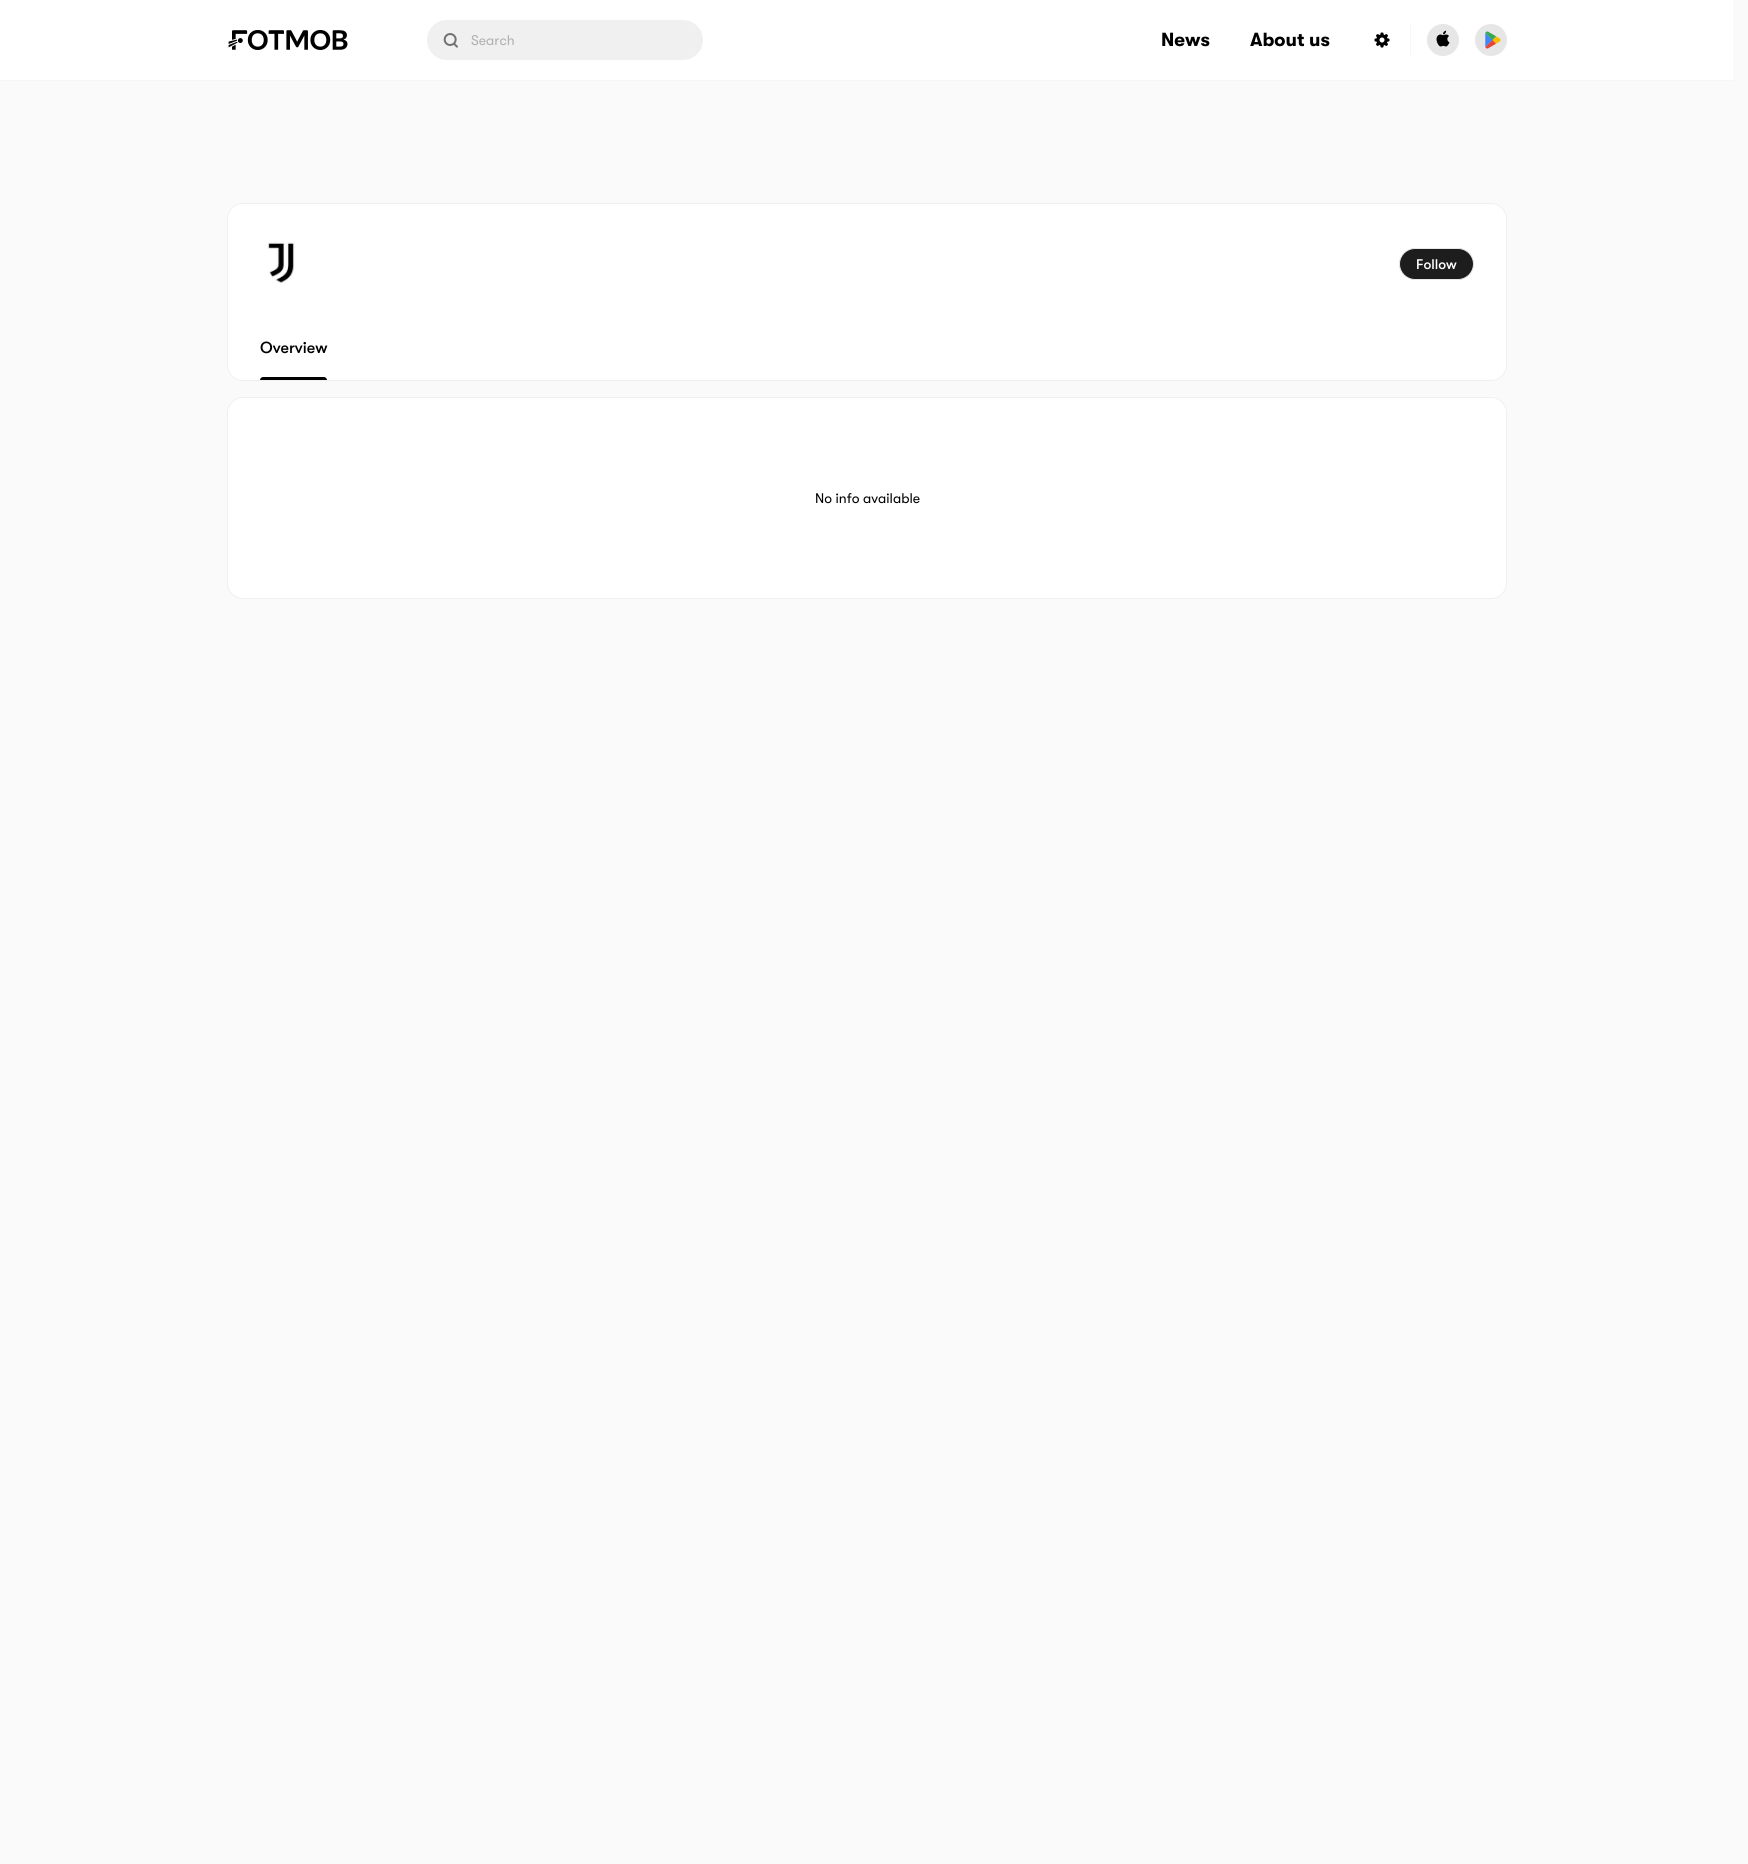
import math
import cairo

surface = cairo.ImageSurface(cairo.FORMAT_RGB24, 1748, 1864)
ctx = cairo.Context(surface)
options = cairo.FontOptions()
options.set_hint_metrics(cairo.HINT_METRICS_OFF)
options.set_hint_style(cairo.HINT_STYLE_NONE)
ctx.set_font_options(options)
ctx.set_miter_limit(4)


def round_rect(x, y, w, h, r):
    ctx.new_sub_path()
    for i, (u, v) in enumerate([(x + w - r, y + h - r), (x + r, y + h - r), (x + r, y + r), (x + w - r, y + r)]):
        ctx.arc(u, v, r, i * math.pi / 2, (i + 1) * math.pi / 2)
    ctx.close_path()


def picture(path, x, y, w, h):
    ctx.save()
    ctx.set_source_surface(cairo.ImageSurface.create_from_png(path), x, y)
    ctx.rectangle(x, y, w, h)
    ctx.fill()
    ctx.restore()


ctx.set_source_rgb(0.98, 0.98, 0.98)
ctx.paint()
ctx.set_source_rgb(0.961, 0.961, 0.961)
ctx.rectangle(0, 80, 1733, 1)
ctx.fill()
ctx.set_source_rgb(1, 1, 1)
ctx.rectangle(0, 0, 1733, 80)
ctx.fill()
picture("img1.png", 228, 30, 120, 20)
ctx.set_source_rgb(0.941, 0.941, 0.941)
round_rect(427, 20, 276, 40, 20)
ctx.fill()
picture("img2.png", 443, 33, 15, 15)
ctx.select_font_face("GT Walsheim")
ctx.set_font_size(14)
ctx.set_source_rgb(0.694, 0.694, 0.694)
ctx.move_to(471, 45)
ctx.show_text("Search")
ctx.select_font_face("GT Walsheim", cairo.FONT_SLANT_NORMAL, cairo.FONT_WEIGHT_BOLD)
ctx.set_font_size(19)
ctx.set_source_rgb(0, 0, 0)
ctx.move_to(1161, 46)
ctx.show_text("News")
ctx.move_to(1250, 46)
ctx.show_text("About us")
picture("img3.png", 1374, 32, 16, 16)
ctx.set_source_rgb(0.961, 0.961, 0.961)
ctx.rectangle(1410, 24, 1, 32)
ctx.fill()
picture("img4.png", 1427, 24, 32, 32)
picture("img5.png", 1475, 24, 32, 32)
ctx.set_source_rgb(1, 1, 1)
round_rect(227.5, 203.5, 1279, 177, 15.5)
ctx.fill_preserve()
ctx.set_source_rgb(0.941, 0.941, 0.941)
ctx.set_line_width(1)
ctx.stroke()
picture("img6.png", 267, 242, 28, 42)
ctx.set_source_rgb(0.114, 0.114, 0.114)
round_rect(1399.5, 248.5, 74, 31, 15.5)
ctx.fill_preserve()
ctx.set_source_rgb(0.91, 0.91, 0.91)
ctx.stroke()
ctx.select_font_face("GT Walsheim Medium")
ctx.set_font_size(14)
ctx.set_source_rgb(1, 1, 1)
ctx.move_to(1416, 269)
ctx.show_text("Follow")
ctx.set_font_size(16)
ctx.set_source_rgb(0, 0, 0)
ctx.move_to(260, 353)
ctx.show_text("Overview")
ctx.new_path()
ctx.move_to(263, 377)
ctx.line_to(324, 377)
ctx.curve_to(325.5, 377, 327, 378.5, 327, 380)
ctx.line_to(260, 380)
ctx.curve_to(260, 378.5, 261.5, 377, 263, 377)
ctx.close_path()
ctx.fill()
ctx.set_source_rgb(1, 1, 1)
round_rect(227.5, 397.5, 1279, 201, 15.5)
ctx.fill_preserve()
ctx.set_source_rgb(0.941, 0.941, 0.941)
ctx.stroke()
ctx.select_font_face("GT Walsheim")
ctx.set_font_size(14)
ctx.set_source_rgb(0, 0, 0)
ctx.move_to(815, 503)
ctx.show_text("No info available")
surface.write_to_png("page.png")
